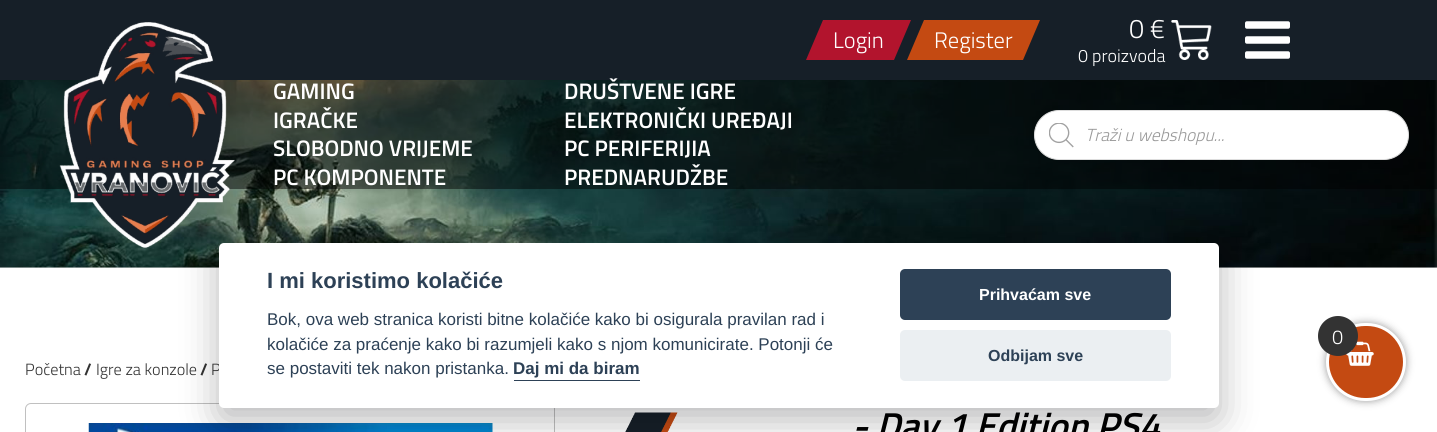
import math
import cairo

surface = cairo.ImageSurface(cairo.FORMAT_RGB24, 1437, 432)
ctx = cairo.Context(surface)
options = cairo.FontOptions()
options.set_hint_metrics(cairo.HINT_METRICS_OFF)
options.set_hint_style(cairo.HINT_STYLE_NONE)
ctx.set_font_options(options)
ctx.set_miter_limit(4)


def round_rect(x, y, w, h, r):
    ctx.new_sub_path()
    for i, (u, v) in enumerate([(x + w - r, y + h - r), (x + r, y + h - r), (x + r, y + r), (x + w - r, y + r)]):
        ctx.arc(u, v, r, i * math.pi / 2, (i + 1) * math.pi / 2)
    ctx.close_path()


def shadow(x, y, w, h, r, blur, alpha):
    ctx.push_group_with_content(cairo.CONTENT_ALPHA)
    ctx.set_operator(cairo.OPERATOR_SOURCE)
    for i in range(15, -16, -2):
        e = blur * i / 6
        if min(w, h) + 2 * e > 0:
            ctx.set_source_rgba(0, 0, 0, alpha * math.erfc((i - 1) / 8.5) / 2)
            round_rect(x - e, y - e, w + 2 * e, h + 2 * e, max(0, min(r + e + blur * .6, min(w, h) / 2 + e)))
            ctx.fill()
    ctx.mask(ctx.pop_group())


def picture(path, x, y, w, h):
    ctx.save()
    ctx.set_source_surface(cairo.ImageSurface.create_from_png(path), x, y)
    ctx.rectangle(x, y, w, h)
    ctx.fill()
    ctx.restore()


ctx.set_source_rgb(1, 1, 1)
ctx.paint()
ctx.set_source_rgb(0.086, 0.122, 0.157)
ctx.rectangle(0, 0, 1437, 80)
ctx.fill()
ctx.set_source_rgb(0.698, 0.082, 0.176)
ctx.new_path()
ctx.move_to(823, 20)
ctx.line_to(911, 20)
ctx.line_to(894, 60)
ctx.line_to(806, 60)
ctx.close_path()
ctx.fill()
ctx.select_font_face("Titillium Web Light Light")
ctx.set_font_size(22.5)
ctx.set_source_rgb(1, 1, 1)
ctx.move_to(833, 48)
ctx.show_text("Login")
ctx.set_source_rgb(0.769, 0.29, 0.071)
ctx.new_path()
ctx.move_to(924, 20)
ctx.line_to(1040, 20)
ctx.line_to(1023, 60)
ctx.line_to(907, 60)
ctx.close_path()
ctx.fill()
ctx.set_source_rgb(1, 1, 1)
ctx.move_to(934, 48)
ctx.show_text("Register")
ctx.set_font_size(27)
ctx.move_to(1129, 38)
ctx.show_text("0 €")
ctx.set_font_size(18)
ctx.move_to(1078, 62)
ctx.show_text("0 proizvoda")
picture("img1.png", 1171, 20, 41, 40)
picture("img2.png", 1245, 21, 45, 38)
ctx.set_source_rgb(0.894, 0.894, 0.894)
ctx.rectangle(0, 267, 1437, 1)
ctx.fill()
picture("img5.png", 0, 80, 1437, 188)
ctx.set_source_rgba(0.004, 0.004, 0.004, 0.47)
ctx.rectangle(0, 80, 1437, 109)
ctx.fill()
picture("img3.png", 59, 22, 176, 226)
ctx.select_font_face("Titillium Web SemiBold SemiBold")
ctx.set_font_size(22.5)
ctx.set_source_rgb(1, 1, 1)
ctx.move_to(273, 99)
ctx.show_text("GAMING")
ctx.move_to(564, 99)
ctx.show_text("DRUŠTVENE IGRE")
ctx.move_to(273, 128)
ctx.show_text("IGRAČKE")
ctx.move_to(564, 128)
ctx.show_text("ELEKTRONIČKI UREĐAJI")
ctx.move_to(273, 156)
ctx.show_text("SLOBODNO VRIJEME")
ctx.move_to(564, 156)
ctx.show_text("PC PERIFERIJIA")
ctx.move_to(273, 185)
ctx.show_text("PC KOMPONENTE")
ctx.move_to(564, 185)
ctx.show_text("PREDNARUDŽBE")
round_rect(1034.5, 110.5, 374, 49, 24.5)
ctx.fill_preserve()
ctx.set_source_rgb(0.867, 0.867, 0.867)
ctx.set_line_width(1)
ctx.stroke()
picture("img4.png", 1049, 123, 25, 25)
ctx.select_font_face("Titillium Web Light Light", cairo.FONT_SLANT_ITALIC)
ctx.set_font_size(17.5)
ctx.set_source_rgb(0.6, 0.6, 0.6)
ctx.move_to(1085, 141)
ctx.show_text("Traži u webshopu...")
ctx.select_font_face("Titillium Web Light Light")
ctx.set_font_size(16.25)
ctx.set_source_rgb(0.2, 0.2, 0.2)
ctx.move_to(25, 375)
ctx.show_text("Početna")
ctx.select_font_face("Titillium Web", cairo.FONT_SLANT_NORMAL, cairo.FONT_WEIGHT_BOLD)
ctx.move_to(84, 375)
ctx.show_text("/")
ctx.select_font_face("Titillium Web Light Light")
ctx.move_to(96, 375)
ctx.show_text("Igre za konzole")
ctx.select_font_face("Titillium Web", cairo.FONT_SLANT_NORMAL, cairo.FONT_WEIGHT_BOLD)
ctx.move_to(200, 375)
ctx.show_text("/")
ctx.select_font_face("Titillium Web Light Light")
ctx.move_to(211, 375)
ctx.show_text("P")
round_rect(25.5, 403.5, 529, 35, 5.5)
ctx.set_source_rgb(0.753, 0.753, 0.753)
ctx.stroke()
picture("img6.png", 88, 423, 405, 9)
picture("img7.png", 625, 412, 53, 20)
ctx.select_font_face("Titillium Web SemiBold SemiBold", cairo.FONT_SLANT_ITALIC)
ctx.set_font_size(37.5)
ctx.set_source_rgb(0, 0, 0)
ctx.move_to(852, 439)
ctx.show_text("- Day 1 Edition PS4")
ctx.set_source_rgb(0.008, 0.008, 0.012)
shadow(219, 255, 1000, 165, 5, 19, 0.28)
ctx.set_source_rgb(1, 1, 1)
round_rect(219, 243, 1000, 165, 5)
ctx.fill()
ctx.select_font_face("Liberation Sans", cairo.FONT_SLANT_NORMAL, cairo.FONT_WEIGHT_BOLD)
ctx.set_font_size(22)
ctx.set_source_rgb(0.176, 0.255, 0.337)
ctx.move_to(267, 288)
ctx.show_text("I mi koristimo kolačiće")
ctx.select_font_face("Liberation Sans")
ctx.set_font_size(17)
ctx.move_to(267, 325)
ctx.show_text("Bok, ova web stranica koristi bitne kolačiće kako bi osigurala pravilan rad i")
ctx.move_to(267, 350)
ctx.show_text("kolačiće za praćenje kako bi razumjeli kako s njom komunicirate. Potonji će")
ctx.move_to(267, 374)
ctx.show_text("se postaviti tek nakon pristanka.")
ctx.select_font_face("Liberation Sans", cairo.FONT_SLANT_NORMAL, cairo.FONT_WEIGHT_BOLD)
ctx.move_to(513, 374)
ctx.show_text("Daj mi da biram")
ctx.rectangle(514, 380, 126, 1)
ctx.fill()
round_rect(900, 269, 271, 51, 5)
ctx.fill()
ctx.set_font_size(16)
ctx.set_source_rgb(1, 1, 1)
ctx.move_to(979, 300)
ctx.show_text("Prihvaćam sve")
ctx.set_source_rgb(0.918, 0.937, 0.949)
round_rect(900, 330, 271, 51, 5)
ctx.fill()
ctx.set_source_rgb(0.176, 0.255, 0.337)
ctx.move_to(988, 361)
ctx.show_text("Odbijam sve")
ctx.set_source_rgb(0.6, 0.6, 0.6)
shadow(1326, 323, 80, 78, 39, 4, 1)
ctx.set_source_rgb(0.769, 0.29, 0.071)
round_rect(1327.5, 324.5, 77, 75, 37.5)
ctx.fill_preserve()
ctx.set_source_rgb(1, 1, 1)
ctx.set_line_width(3)
ctx.stroke()
picture("img8.png", 1346, 341, 28, 25)
ctx.set_source_rgb(0.2, 0.2, 0.2)
ctx.arc(1338, 336, 20, 0, 2 * math.pi)
ctx.fill()
ctx.select_font_face("Titillium Web Light Light")
ctx.set_font_size(20)
ctx.set_source_rgb(1, 1, 1)
ctx.move_to(1332, 344)
ctx.show_text("0")
surface.write_to_png("page.png")
